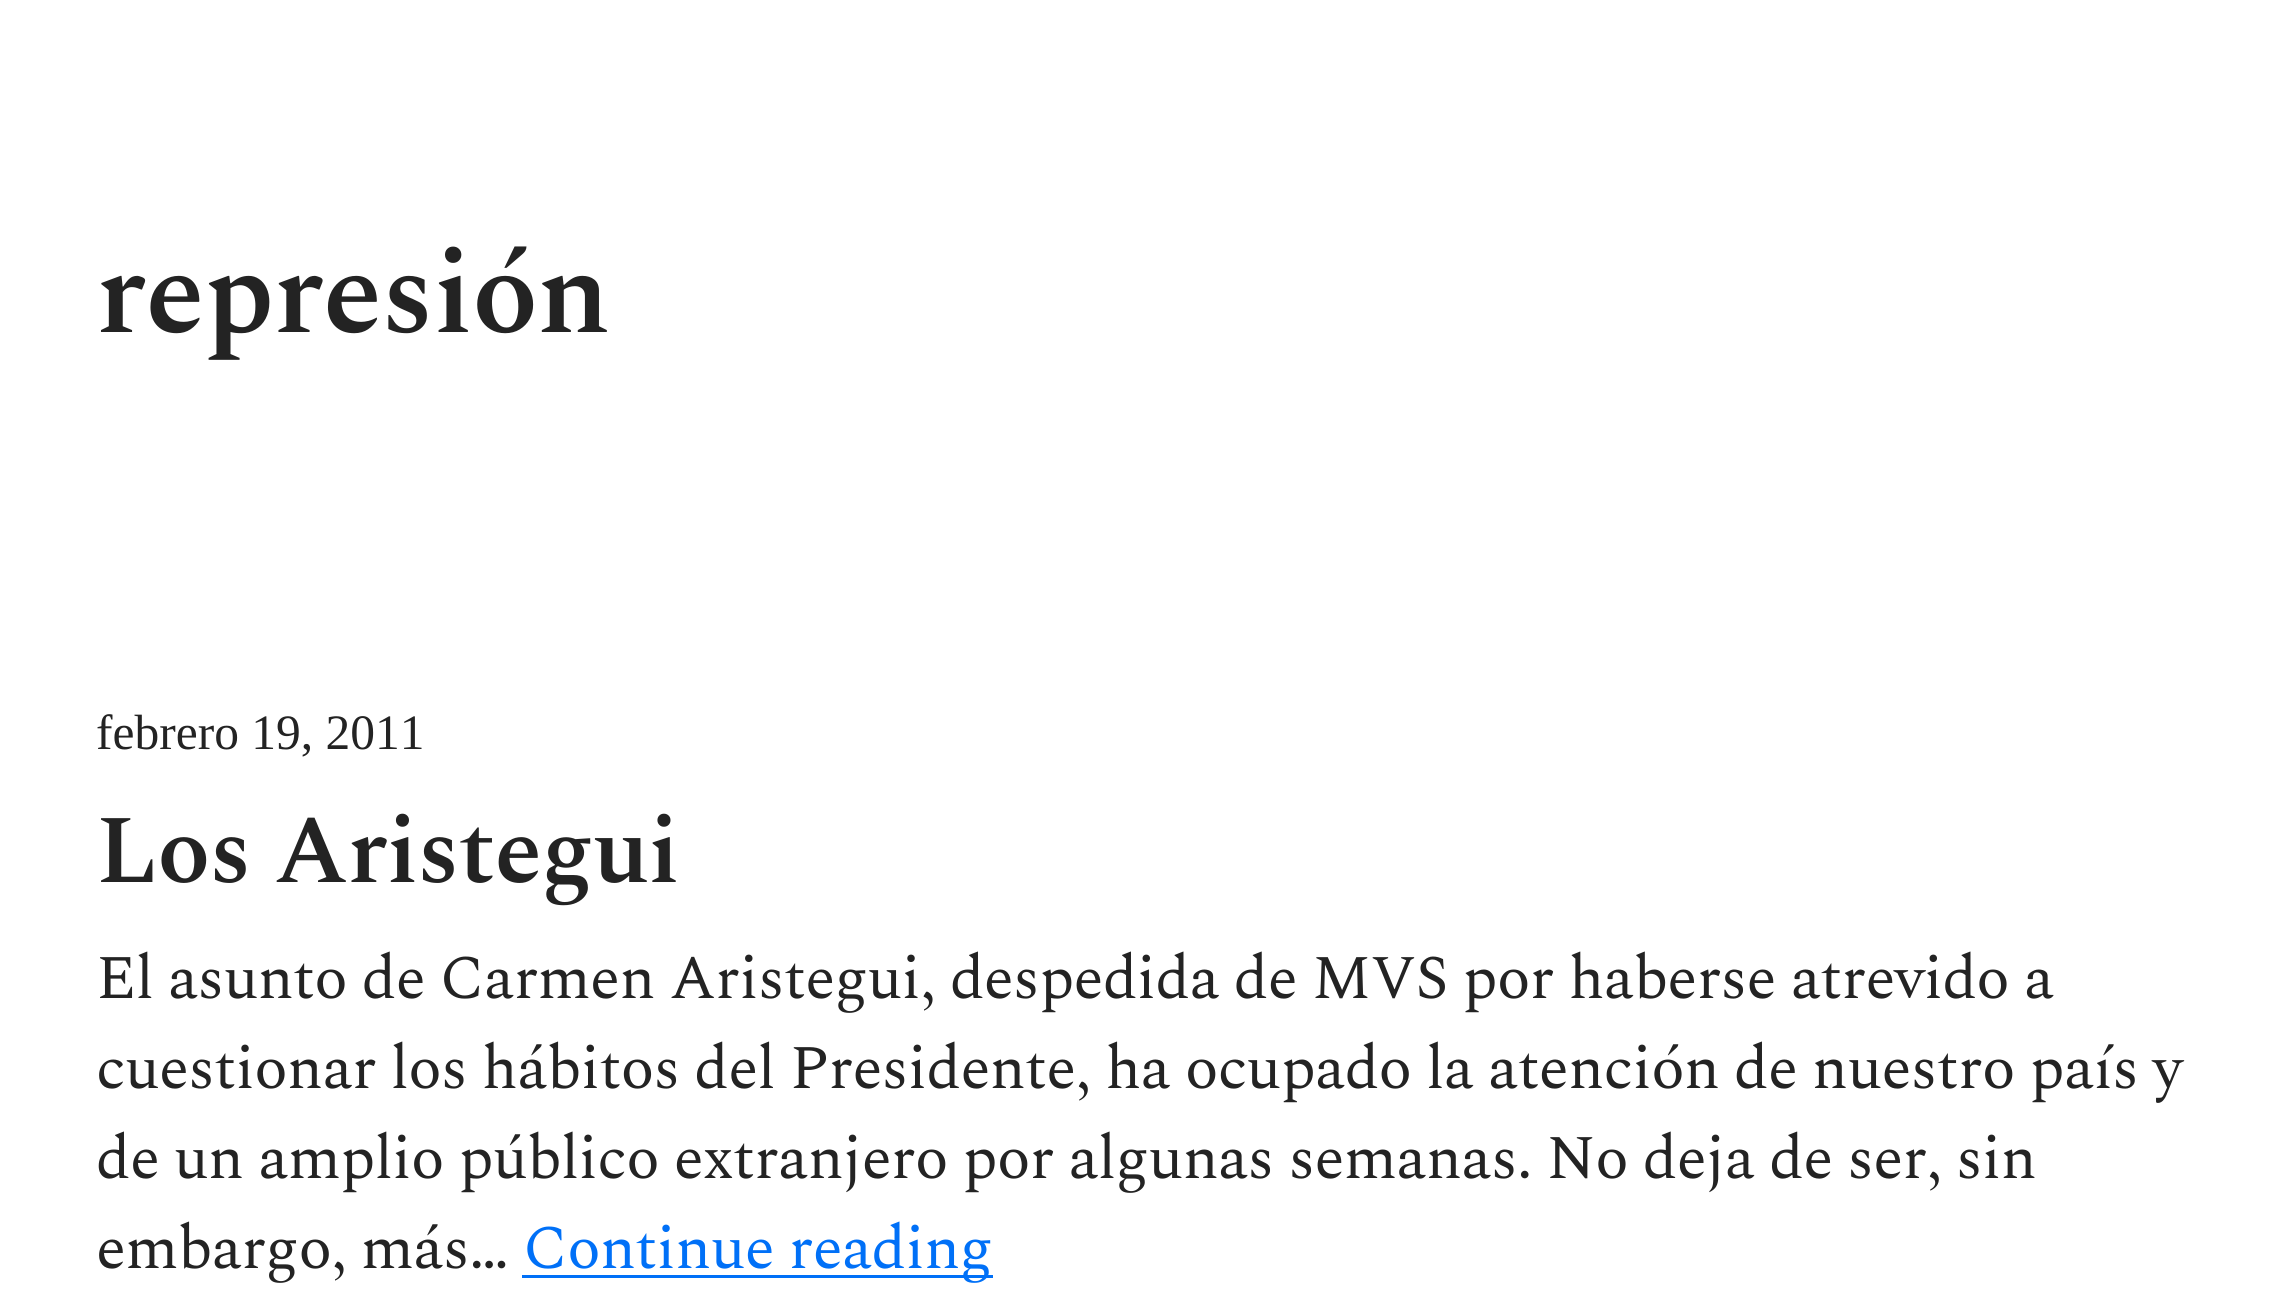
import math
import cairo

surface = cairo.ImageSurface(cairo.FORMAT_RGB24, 2285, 1304)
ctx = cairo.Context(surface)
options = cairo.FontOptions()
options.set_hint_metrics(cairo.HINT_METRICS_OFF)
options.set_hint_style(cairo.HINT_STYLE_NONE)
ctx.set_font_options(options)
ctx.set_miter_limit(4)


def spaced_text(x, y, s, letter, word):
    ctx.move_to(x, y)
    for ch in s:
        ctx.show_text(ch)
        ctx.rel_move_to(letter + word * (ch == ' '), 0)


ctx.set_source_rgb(1, 1, 1)
ctx.paint()
ctx.select_font_face("Spectral SemiBold")
ctx.set_font_size(121)
ctx.set_source_rgb(0.137, 0.137, 0.137)
spaced_text(96, 332, "represión", -0.68, 0)
ctx.select_font_face("Liberation Serif")
ctx.set_font_size(49.5)
ctx.move_to(96, 749)
ctx.show_text("febrero 19, 2011")
ctx.select_font_face("Spectral SemiBold")
ctx.set_font_size(96.75)
spaced_text(96, 882, "Los Aristegui", -0.68, 0)
ctx.select_font_face("Spectral")
ctx.set_font_size(61.9)
spaced_text(96, 998, "El asunto de Carmen Aristegui, despedida de MVS por haberse atrevido a", -0.68, 0)
spaced_text(96, 1088, "cuestionar los hábitos del Presidente, ha ocupado la atención de nuestro país y", -0.68, 0)
spaced_text(96, 1178, "de un amplio público extranjero por algunas semanas. No deja de ser, sin", -0.68, 0)
spaced_text(96, 1268, "embargo, más…", -0.68, 0)
ctx.set_source_rgb(0, 0.439, 0.965)
ctx.rectangle(522, 1275, 471, 3)
ctx.fill()
spaced_text(523, 1268, "Continue reading", -0.68, 0)
surface.write_to_png("page.png")
